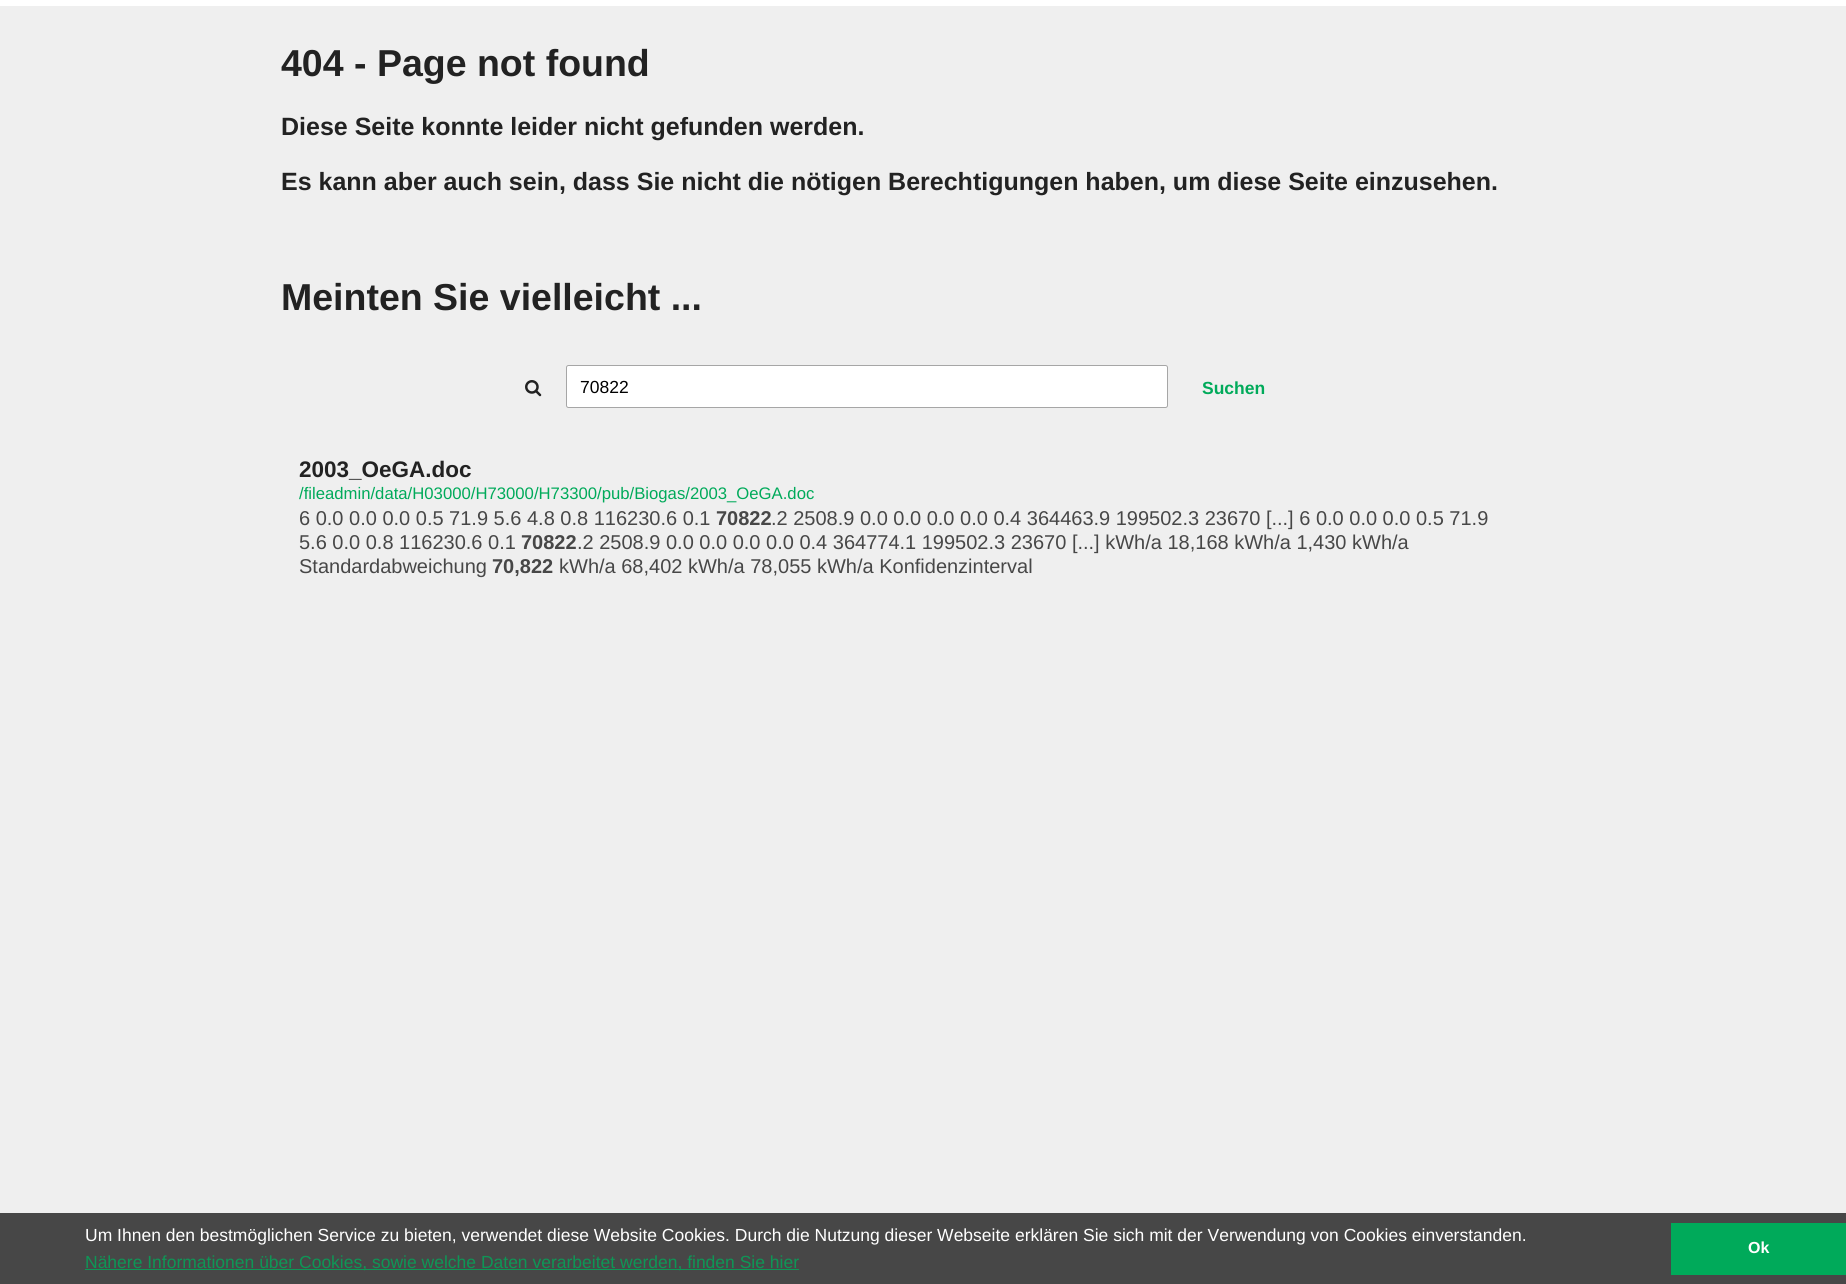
import math
import cairo

surface = cairo.ImageSurface(cairo.FORMAT_RGB24, 1846, 1284)
ctx = cairo.Context(surface)
options = cairo.FontOptions()
options.set_hint_metrics(cairo.HINT_METRICS_OFF)
options.set_hint_style(cairo.HINT_STYLE_NONE)
ctx.set_font_options(options)
ctx.set_miter_limit(4)


def round_rect(x, y, w, h, r):
    ctx.new_sub_path()
    for i, (u, v) in enumerate([(x + w - r, y + h - r), (x + r, y + h - r), (x + r, y + r), (x + w - r, y + r)]):
        ctx.arc(u, v, r, i * math.pi / 2, (i + 1) * math.pi / 2)
    ctx.close_path()


def picture(path, x, y, w, h):
    ctx.save()
    ctx.set_source_surface(cairo.ImageSurface.create_from_png(path), x, y)
    ctx.rectangle(x, y, w, h)
    ctx.fill()
    ctx.restore()


ctx.set_source_rgb(0.937, 0.937, 0.937)
ctx.paint()
ctx.set_source_rgb(1, 1, 1)
ctx.rectangle(0, 0, 1846, 6)
ctx.fill()
ctx.select_font_face("Liberation Sans", cairo.FONT_SLANT_NORMAL, cairo.FONT_WEIGHT_BOLD)
ctx.set_font_size(37.5)
ctx.set_source_rgb(0.133, 0.133, 0.133)
ctx.move_to(281, 76)
ctx.show_text("404 - Page not found")
ctx.set_font_size(25)
ctx.move_to(281, 135)
ctx.show_text("Diese Seite konnte leider nicht gefunden werden.")
ctx.move_to(281, 190)
ctx.show_text("Es kann aber auch sein, dass Sie nicht die nötigen Berechtigungen haben, um diese Seite einzusehen.")
ctx.set_font_size(37.5)
ctx.move_to(281, 310)
ctx.show_text("Meinten Sie vielleicht ...")
picture("img1.png", 525, 380, 17, 17)
ctx.set_source_rgb(1, 1, 1)
round_rect(566.5, 365.5, 601, 42, 2)
ctx.fill_preserve()
ctx.set_source_rgb(0.651, 0.651, 0.651)
ctx.set_line_width(1)
ctx.stroke()
ctx.select_font_face("Liberation Sans")
ctx.set_font_size(17.5)
ctx.set_source_rgb(0, 0, 0)
ctx.move_to(580, 393)
ctx.show_text("70822")
ctx.select_font_face("Liberation Sans", cairo.FONT_SLANT_NORMAL, cairo.FONT_WEIGHT_BOLD)
ctx.set_source_rgb(0, 0.667, 0.353)
ctx.move_to(1202, 394)
ctx.show_text("Suchen")
ctx.set_font_size(22.5)
ctx.set_source_rgb(0.133, 0.133, 0.133)
ctx.move_to(299, 477)
ctx.show_text("2003_OeGA.doc")
ctx.select_font_face("Liberation Sans")
ctx.set_font_size(16.7)
ctx.set_source_rgb(0, 0.667, 0.353)
ctx.move_to(299, 499)
ctx.show_text("/fileadmin/data/H03000/H73000/H73300/pub/Biogas/2003_OeGA.doc")
ctx.set_font_size(20)
ctx.set_source_rgb(0.278, 0.278, 0.278)
ctx.move_to(299, 525)
ctx.show_text("6 0.0 0.0 0.0 0.5 71.9 5.6 4.8 0.8 116230.6 0.1")
ctx.select_font_face("Liberation Sans", cairo.FONT_SLANT_NORMAL, cairo.FONT_WEIGHT_BOLD)
ctx.move_to(716, 525)
ctx.show_text("70822")
ctx.select_font_face("Liberation Sans")
ctx.move_to(771, 525)
ctx.show_text(".2 2508.9 0.0 0.0 0.0 0.0 0.4 364463.9 199502.3 23670 [...] 6 0.0 0.0 0.0 0.5 71.9")
ctx.move_to(299, 549)
ctx.show_text("5.6 0.0 0.8 116230.6 0.1")
ctx.select_font_face("Liberation Sans", cairo.FONT_SLANT_NORMAL, cairo.FONT_WEIGHT_BOLD)
ctx.move_to(521, 549)
ctx.show_text("70822")
ctx.select_font_face("Liberation Sans")
ctx.move_to(577, 549)
ctx.show_text(".2 2508.9 0.0 0.0 0.0 0.0 0.4 364774.1 199502.3 23670 [...] kWh/a 18,168 kWh/a 1,430 kWh/a")
ctx.move_to(299, 573)
ctx.show_text("Standardabweichung")
ctx.select_font_face("Liberation Sans", cairo.FONT_SLANT_NORMAL, cairo.FONT_WEIGHT_BOLD)
ctx.move_to(492, 573)
ctx.show_text("70,822")
ctx.select_font_face("Liberation Sans")
ctx.move_to(559, 573)
ctx.show_text("kWh/a 68,402 kWh/a 78,055 kWh/a Konfidenzinterval")
ctx.rectangle(0, 1213, 1846, 71)
ctx.fill()
ctx.set_font_size(17.5)
ctx.set_source_rgb(1, 1, 1)
ctx.move_to(85, 1241)
ctx.show_text("Um Ihnen den bestmöglichen Service zu bieten, verwendet diese Website Cookies. Durch die Nutzung dieser Webseite erklären Sie sich mit der Verwendung von Cookies einverstanden.")
ctx.set_source_rgb(0.055, 0.588, 0.337)
ctx.rectangle(85, 1269, 714, 1)
ctx.fill()
ctx.move_to(85, 1268)
ctx.show_text("Nähere Informationen über Cookies, sowie welche Daten verarbeitet werden, finden Sie hier")
ctx.set_source_rgb(0, 0.667, 0.353)
ctx.rectangle(1671, 1223, 175, 52)
ctx.fill()
ctx.select_font_face("Liberation Sans", cairo.FONT_SLANT_NORMAL, cairo.FONT_WEIGHT_BOLD)
ctx.set_font_size(16)
ctx.set_source_rgb(1, 1, 1)
ctx.move_to(1748, 1253)
ctx.show_text("Ok")
surface.write_to_png("page.png")
